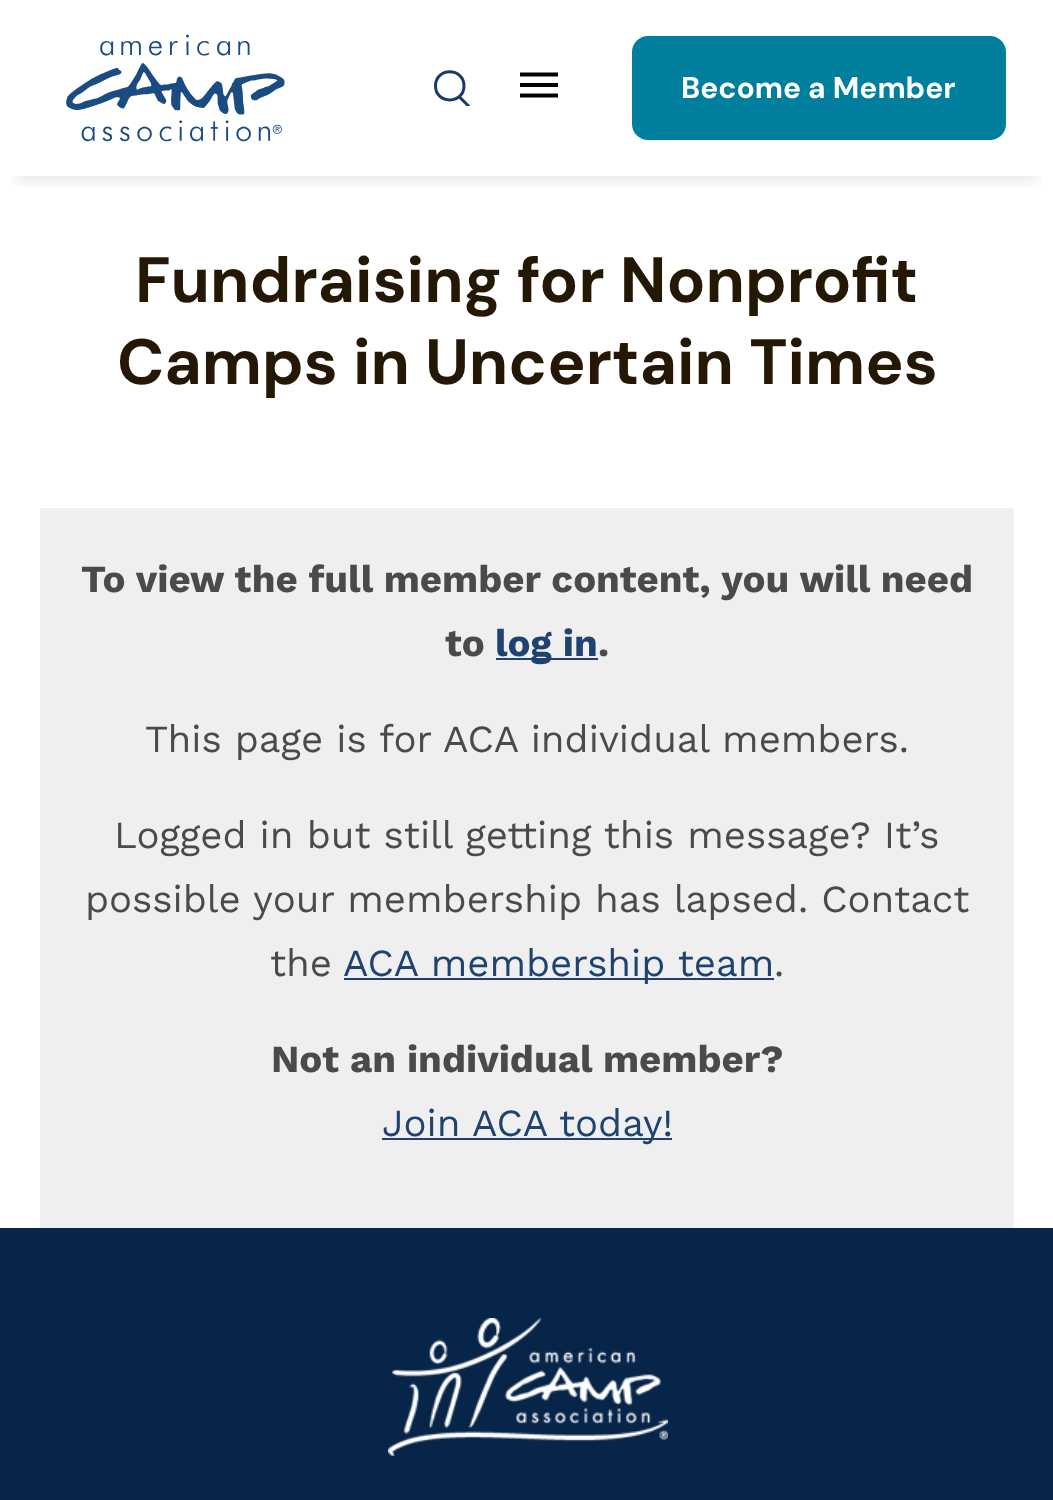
<svg xmlns="http://www.w3.org/2000/svg" width="1053" height="1500">
	<defs>
		<clipPath id="clip1"><rect x="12" y="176" width="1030" height="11" /></clipPath>
		<clipPath id="clip2"><rect x="434" y="70" width="36" height="36" /></clipPath>
	</defs>
	<rect width="100%" height="100%" fill="#FFFFFF" />
	<g clip-path="url(#clip1)">
		<rect x="16" y="36" width="1022" height="144" fill="#000000" fill-opacity="0.1" filter="blur(8px)" />
	</g>
	<image x="66" y="34" width="219" height="108" href="assets/img1.png" />
	<g clip-path="url(#clip2)">
		<path d="M435.5 86C435.5 67 464 67 464 86C464 104.5 435.5 104.5 435.5 86ZM459.5 97L468.5 106" fill="none" stroke="#1B396B" stroke-width="3" stroke-linecap="round" stroke-linejoin="round" />
	</g>
	<path d="M520 72.5H558V76.5H520ZM520 87V83H558V87ZM520 97.5V93.5H558V97.5Z" fill="#000000" />
	<rect x="633" y="37" width="372" height="102" rx="15" fill="#007E9E" stroke="#007E9E" stroke-width="2" />
	<text x="681" y="98" font-family="DM Sans" font-size="30" font-weight="700" fill="#FFFFFF">Become a Member</text>
	<g font-family="DM Sans" font-size="64" font-weight="700" fill="#241704">
		<text x="135" y="302">Fundraising for Nonprofit</text>
		<text x="117" y="384">Camps in Uncertain Times</text>
	</g>
	<rect x="40" y="508" width="974" height="720" fill="#EFEFEF" />
	<g font-family="Work Sans" font-size="38.4" font-weight="700" fill="#4A4A4A">
		<text x="81" y="592">To view the full member content, you will need</text>
		<text x="445" y="656">to</text>
	</g>
	<rect x="496" y="658" width="102" height="2" fill="#1F426F" />
	<text x="495" y="656" font-family="Work Sans" font-size="38.4" font-weight="700" fill="#1F426F">log in</text>
	<text x="598" y="656" font-family="Work Sans" font-size="38.4" font-weight="700" fill="#4A4A4A">.</text>
	<g font-family="Work Sans" font-size="38.4" fill="#4A4A4A">
		<text x="145" y="752">This page is for ACA individual members.</text>
		<text x="114" y="848">Logged in but still getting this message? It’s</text>
		<text x="85" y="912">possible your membership has lapsed. Contact</text>
		<text x="270" y="976">the</text>
	</g>
	<rect x="344" y="978" width="430" height="2" fill="#1F426F" />
	<text x="343" y="976" font-family="Work Sans" font-size="38.4" fill="#1F426F">ACA membership team</text>
	<text x="774" y="976" font-family="Work Sans" font-size="38.4" fill="#4A4A4A">.</text>
	<text x="271" y="1072" font-family="Work Sans" font-size="38.4" font-weight="700" fill="#4A4A4A">Not an individual member?</text>
	<rect x="382" y="1138" width="290" height="2" fill="#1F426F" />
	<text x="382" y="1136" font-family="Work Sans" font-size="38.4" fill="#1F426F">Join ACA today!</text>
	<rect x="0" y="1228" width="1053" height="272" fill="#072449" />
	<image x="388" y="1318" width="280" height="138" href="assets/img2.png" />
</svg>
